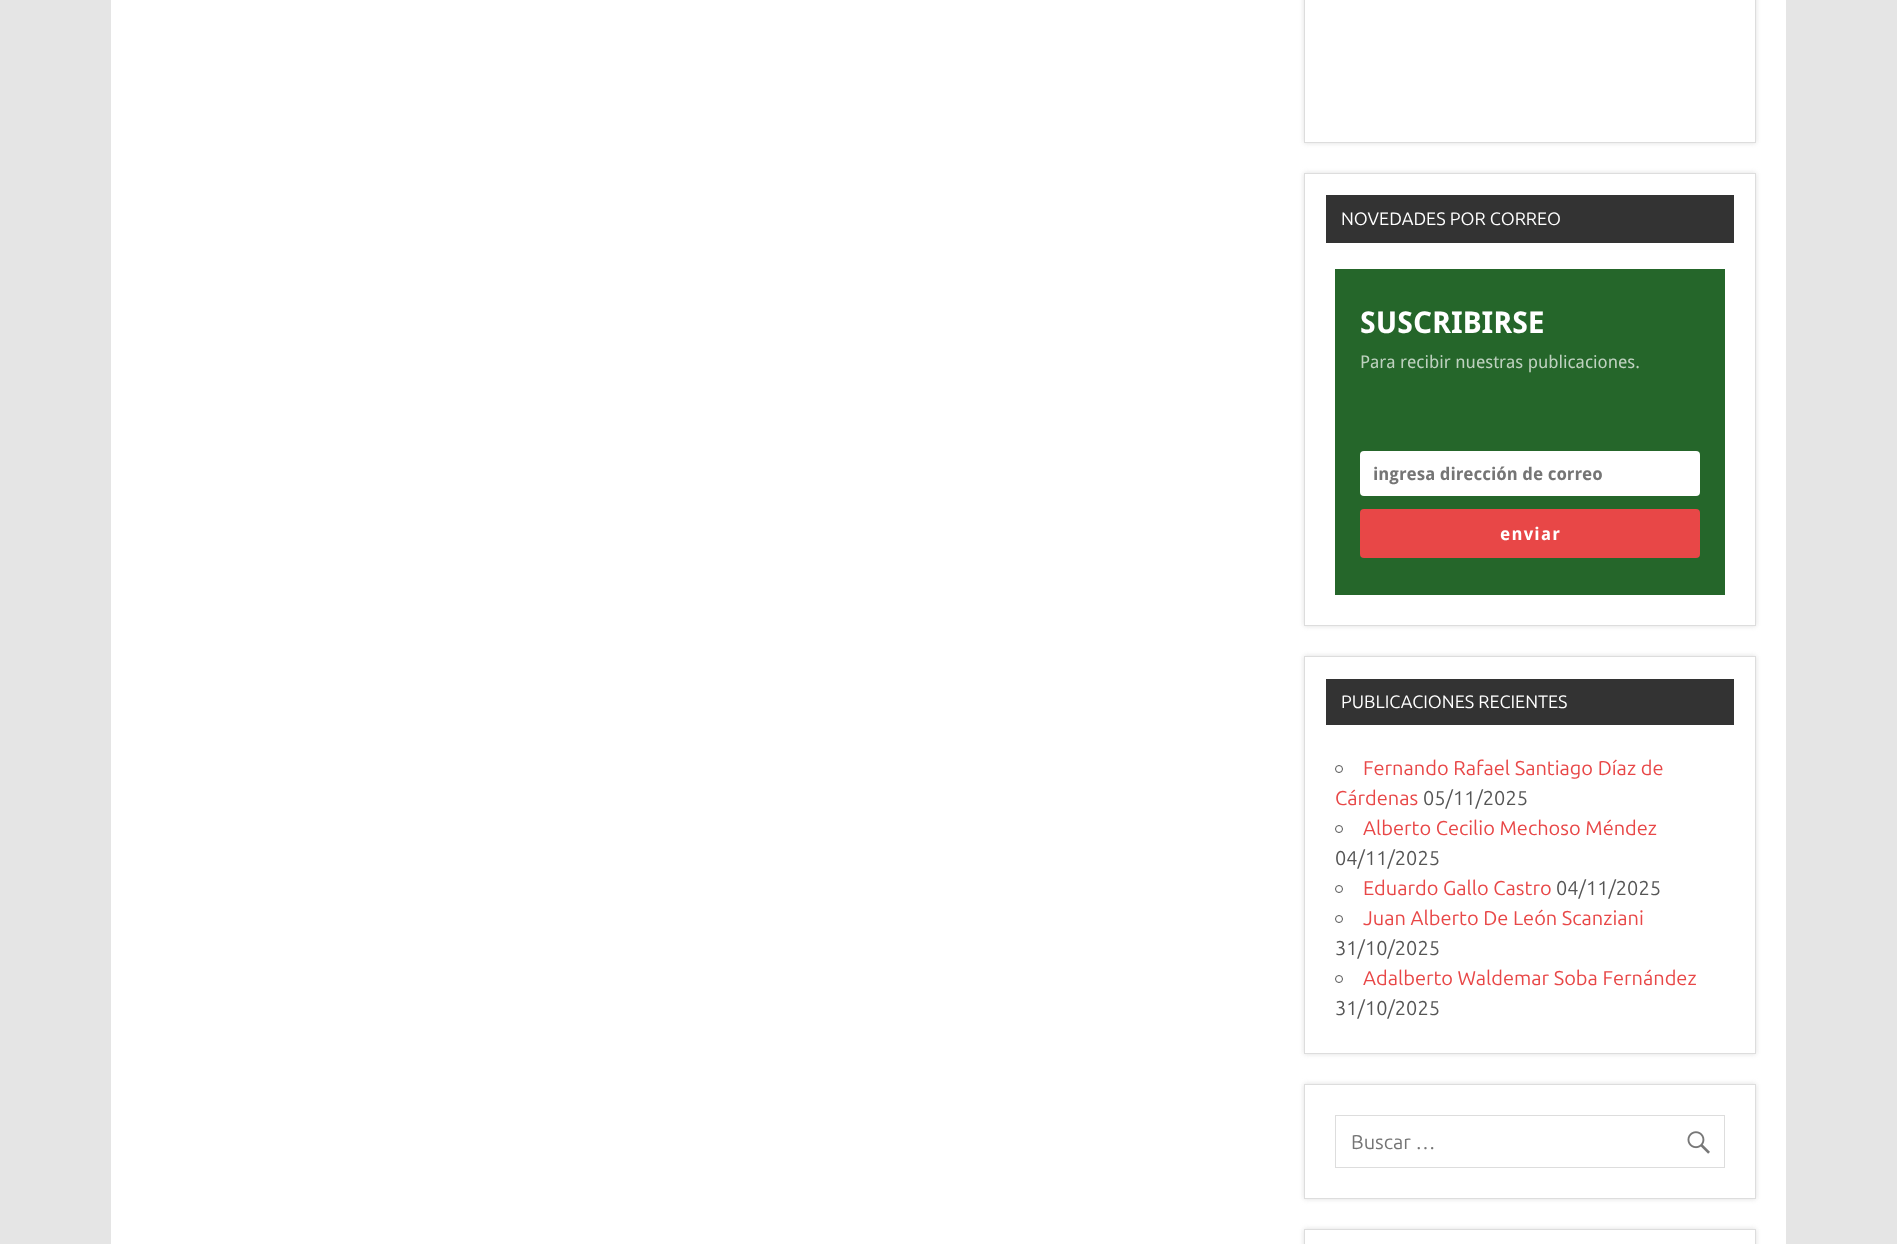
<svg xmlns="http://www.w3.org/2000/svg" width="1897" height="1244">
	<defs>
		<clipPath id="clip1"><path d="M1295 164H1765V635H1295ZM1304 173H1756V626H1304Z" clip-rule="evenodd" /></clipPath>
		<clipPath id="clip2"><path d="M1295 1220H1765V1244H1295ZM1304 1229H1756V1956H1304Z" clip-rule="evenodd" /></clipPath>
	</defs>
	<rect width="100%" height="100%" fill="#E5E5E5" />
	<rect x="111" y="0" width="1675" height="1244" fill="#FFFFFF" />
	<rect x="1304" y="-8" width="452" height="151" fill="#DDDDDD" filter="blur(2.5px)" />
	<rect x="1304.5" y="-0.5" width="451" height="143" fill="#FFFFFF" stroke="#DDDDDD" />
	<g clip-path="url(#clip1)">
		<rect x="1304" y="173" width="452" height="453" fill="#DDDDDD" filter="blur(2.5px)" />
	</g>
	<rect x="1304.5" y="173.5" width="451" height="452" fill="none" stroke="#DDDDDD" />
	<rect x="1326" y="195" width="408" height="48" fill="#333333" />
	<text x="1341" y="225" font-family="Ubuntu" font-size="18" fill="#FFFFFF">NOVEDADES POR CORREO</text>
	<rect x="1335" y="269" width="390" height="326" fill="#25662A" />
	<text x="1360" y="333" font-family="Droid Sans" font-size="30" font-weight="700" fill="#FFFFFF">SUSCRIBIRSE</text>
	<text x="1360" y="368" font-family="Droid Sans" font-size="17.5" fill="#BED1BF">Para recibir nuestras publicaciones.</text>
	<rect x="1360" y="451" width="340" height="45" rx="4" fill="#FFFFFF" />
	<text x="1373" y="480" font-family="Droid Sans" font-size="17.5" font-weight="700" fill="#757575">ingresa dirección de correo</text>
	<rect x="1360" y="509" width="340" height="49" rx="4" fill="#E84747" />
	<text x="1500" y="540" font-family="Droid Sans" font-size="17.5" font-weight="700" letter-spacing="1.25" fill="#FFFFFF">enviar</text>
	<rect x="1304" y="656" width="452" height="398" fill="#DDDDDD" filter="blur(2.5px)" />
	<rect x="1304.5" y="656.5" width="451" height="397" fill="#FFFFFF" stroke="#DDDDDD" />
	<rect x="1326" y="679" width="408" height="46" fill="#333333" />
	<text x="1341" y="708" font-family="Ubuntu" font-size="18" fill="#FFFFFF">PUBLICACIONES RECIENTES</text>
	<circle cx="1339" cy="769" r="3.5" fill="none" stroke="#555555" />
	<g font-family="Ubuntu" font-size="20" fill="#E84747">
		<text x="1363" y="775">Fernando Rafael Santiago Díaz de</text>
		<text x="1335" y="805">Cárdenas</text>
	</g>
	<text x="1423" y="805" font-family="Ubuntu" font-size="20" fill="#555555">05/11/2025</text>
	<circle cx="1339" cy="829" r="3.5" fill="none" stroke="#555555" />
	<text x="1363" y="835" font-family="Ubuntu" font-size="20" fill="#E84747">Alberto Cecilio Mechoso Méndez</text>
	<text x="1335" y="865" font-family="Ubuntu" font-size="20" fill="#555555">04/11/2025</text>
	<circle cx="1339" cy="889" r="3.5" fill="none" stroke="#555555" />
	<text x="1363" y="895" font-family="Ubuntu" font-size="20" fill="#E84747">Eduardo Gallo Castro</text>
	<text x="1556" y="895" font-family="Ubuntu" font-size="20" fill="#555555">04/11/2025</text>
	<circle cx="1339" cy="919" r="3.5" fill="none" stroke="#555555" />
	<text x="1363" y="925" font-family="Ubuntu" font-size="20" fill="#E84747">Juan Alberto De León Scanziani</text>
	<text x="1335" y="955" font-family="Ubuntu" font-size="20" fill="#555555">31/10/2025</text>
	<circle cx="1339" cy="979" r="3.5" fill="none" stroke="#555555" />
	<text x="1363" y="985" font-family="Ubuntu" font-size="20" fill="#E84747">Adalberto Waldemar Soba Fernández</text>
	<text x="1335" y="1015" font-family="Ubuntu" font-size="20" fill="#555555">31/10/2025</text>
	<rect x="1304" y="1084" width="452" height="115" fill="#DDDDDD" filter="blur(2.5px)" />
	<rect x="1304.5" y="1084.5" width="451" height="114" fill="#FFFFFF" stroke="#DDDDDD" />
	<rect x="1335.5" y="1115.5" width="389" height="52" fill="none" stroke="#DDDDDD" />
	<text x="1351" y="1149" font-family="Ubuntu" font-size="20" fill="#757575">Buscar …</text>
	<image x="1687" y="1131" width="23" height="23" href="assets/img1.png" />
	<g clip-path="url(#clip2)">
		<rect x="1304" y="1229" width="452" height="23" fill="#DDDDDD" filter="blur(2.5px)" />
	</g>
	<rect x="1304.5" y="1229.5" width="451" height="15" fill="none" stroke="#DDDDDD" />
</svg>
